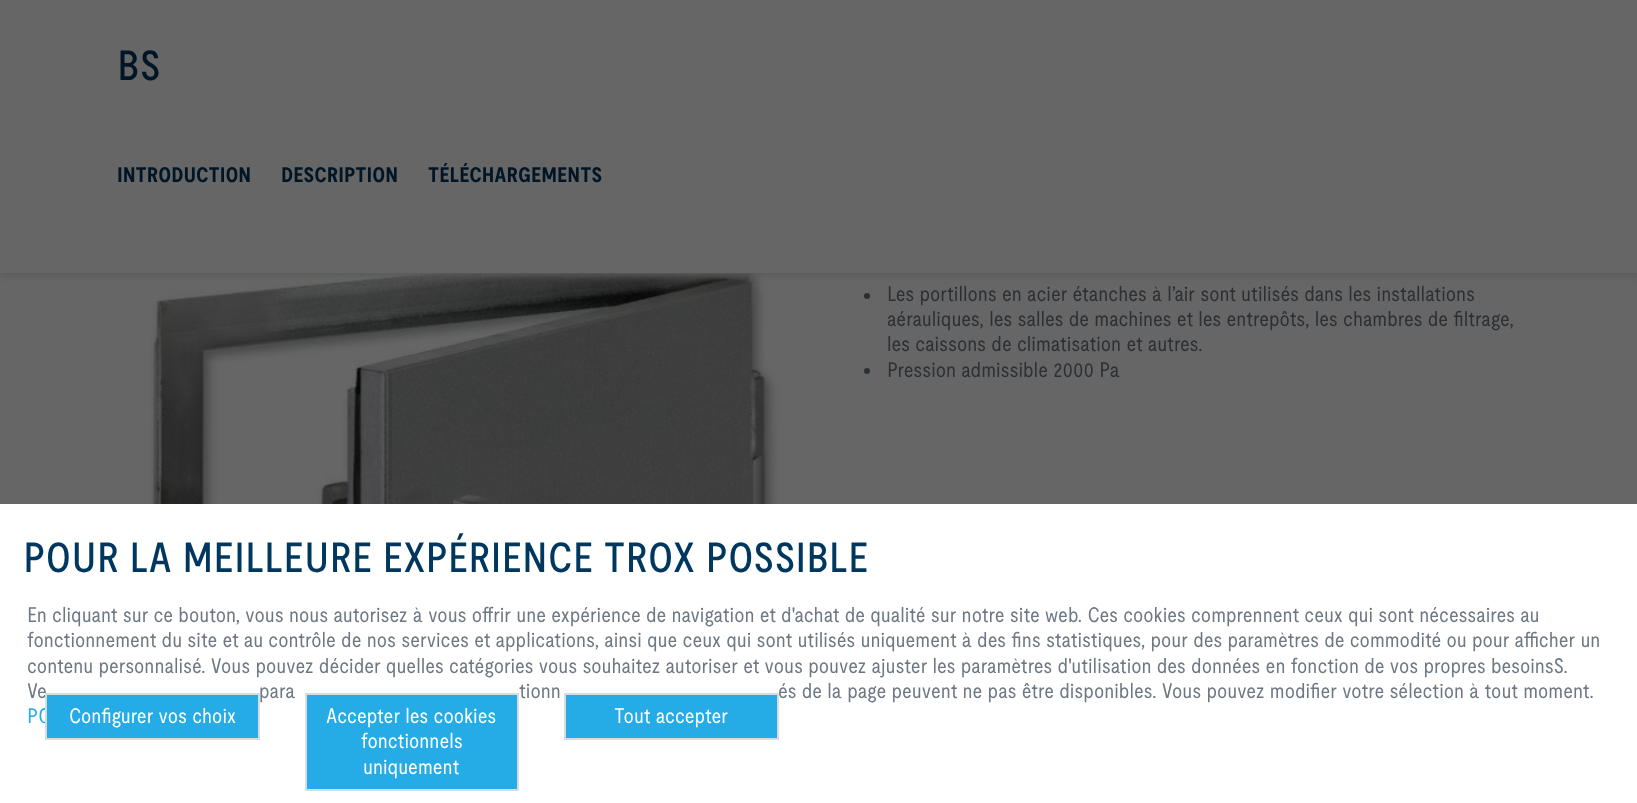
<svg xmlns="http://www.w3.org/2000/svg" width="1637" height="803">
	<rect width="100%" height="100%" fill="#666666" />
	<image x="149" y="273" width="631" height="231" href="assets/img1.png" />
	<rect x="0" y="-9" width="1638" height="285" fill="#5A5A5A" filter="blur(3px)" />
	<rect x="-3" y="-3" width="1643" height="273" fill="none" stroke="#666666" stroke-width="6" />
	<rect x="0" y="0" width="1637" height="267" fill="#666666" />
	<text x="117" y="80" font-family="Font" font-size="42" font-weight="500" fill="#001626">BS</text>
	<g font-family="Font" font-size="21" font-weight="700" fill="#001626">
		<text x="117" y="182">INTRODUCTION</text>
		<text x="281" y="182">DESCRIPTION</text>
		<text x="428" y="182">TÉLÉCHARGEMENTS</text>
	</g>
	<circle cx="867" cy="296" r="3" fill="#2C3034" />
	<g font-family="Font" font-size="21" fill="#2C3034">
		<text x="887" y="301">Les portillons en acier étanches à l’air sont utilisés dans les installations</text>
		<text x="887" y="326">aérauliques, les salles de machines et les entrepôts, les chambres de filtrage,</text>
		<text x="887" y="351">les caissons de climatisation et autres.</text>
	</g>
	<circle cx="867" cy="371" r="3" fill="#2C3034" />
	<text x="887" y="377" font-family="Font" font-size="21" fill="#2C3034">Pression admissible 2000 Pa</text>
	<rect x="0" y="504" width="1637" height="299" fill="#FFFFFF" />
	<text x="23" y="572" font-family="Font" font-size="42" font-weight="500" fill="#00375F">POUR LA MEILLEURE EXPÉRIENCE TROX POSSIBLE</text>
	<g font-family="Font" font-size="21" fill="#6E7883">
		<text x="27" y="622">En cliquant sur ce bouton, vous nous autorisez à vous offrir une expérience de navigation et d'achat de qualité sur notre site web. Ces cookies comprennent ceux qui sont nécessaires au</text>
		<text x="27" y="647">fonctionnement du site et au contrôle de nos services et applications, ainsi que ceux qui sont utilisés uniquement à des fins statistiques, pour des paramètres de commodité ou pour afficher un</text>
		<text x="27" y="673">contenu personnalisé. Vous pouvez décider quelles catégories vous souhaitez autoriser et vous pouvez ajuster les paramètres d'utilisation des données en fonction de vos propres besoinsS.</text>
		<text x="27" y="698">Ve</text>
		<text x="259" y="698">para</text>
		<text x="519" y="698">tionn</text>
		<text x="778" y="698">és de la page peuvent ne pas être disponibles. Vous pouvez modifier votre sélection à tout moment.</text>
	</g>
	<text x="27" y="723" font-family="Font" font-size="21" fill="#25ACE7">PO</text>
	<rect x="46" y="694" width="213" height="45" fill="#25ACE7" stroke="#D9DCDD" stroke-width="2" />
	<text x="69" y="723" font-family="Font" font-size="21" fill="#FFFFFF">Configurer vos choix</text>
	<rect x="306" y="694" width="212" height="96" fill="#25ACE7" stroke="#D9DCDD" stroke-width="2" />
	<g font-family="Font" font-size="21" fill="#FFFFFF">
		<text x="326" y="723">Accepter les cookies</text>
		<text x="361" y="748">fonctionnels</text>
		<text x="363" y="774">uniquement</text>
	</g>
	<rect x="565" y="694" width="213" height="45" fill="#25ACE7" stroke="#D9DCDD" stroke-width="2" />
	<text x="614" y="723" font-family="Font" font-size="21" fill="#FFFFFF">Tout accepter</text>
</svg>
